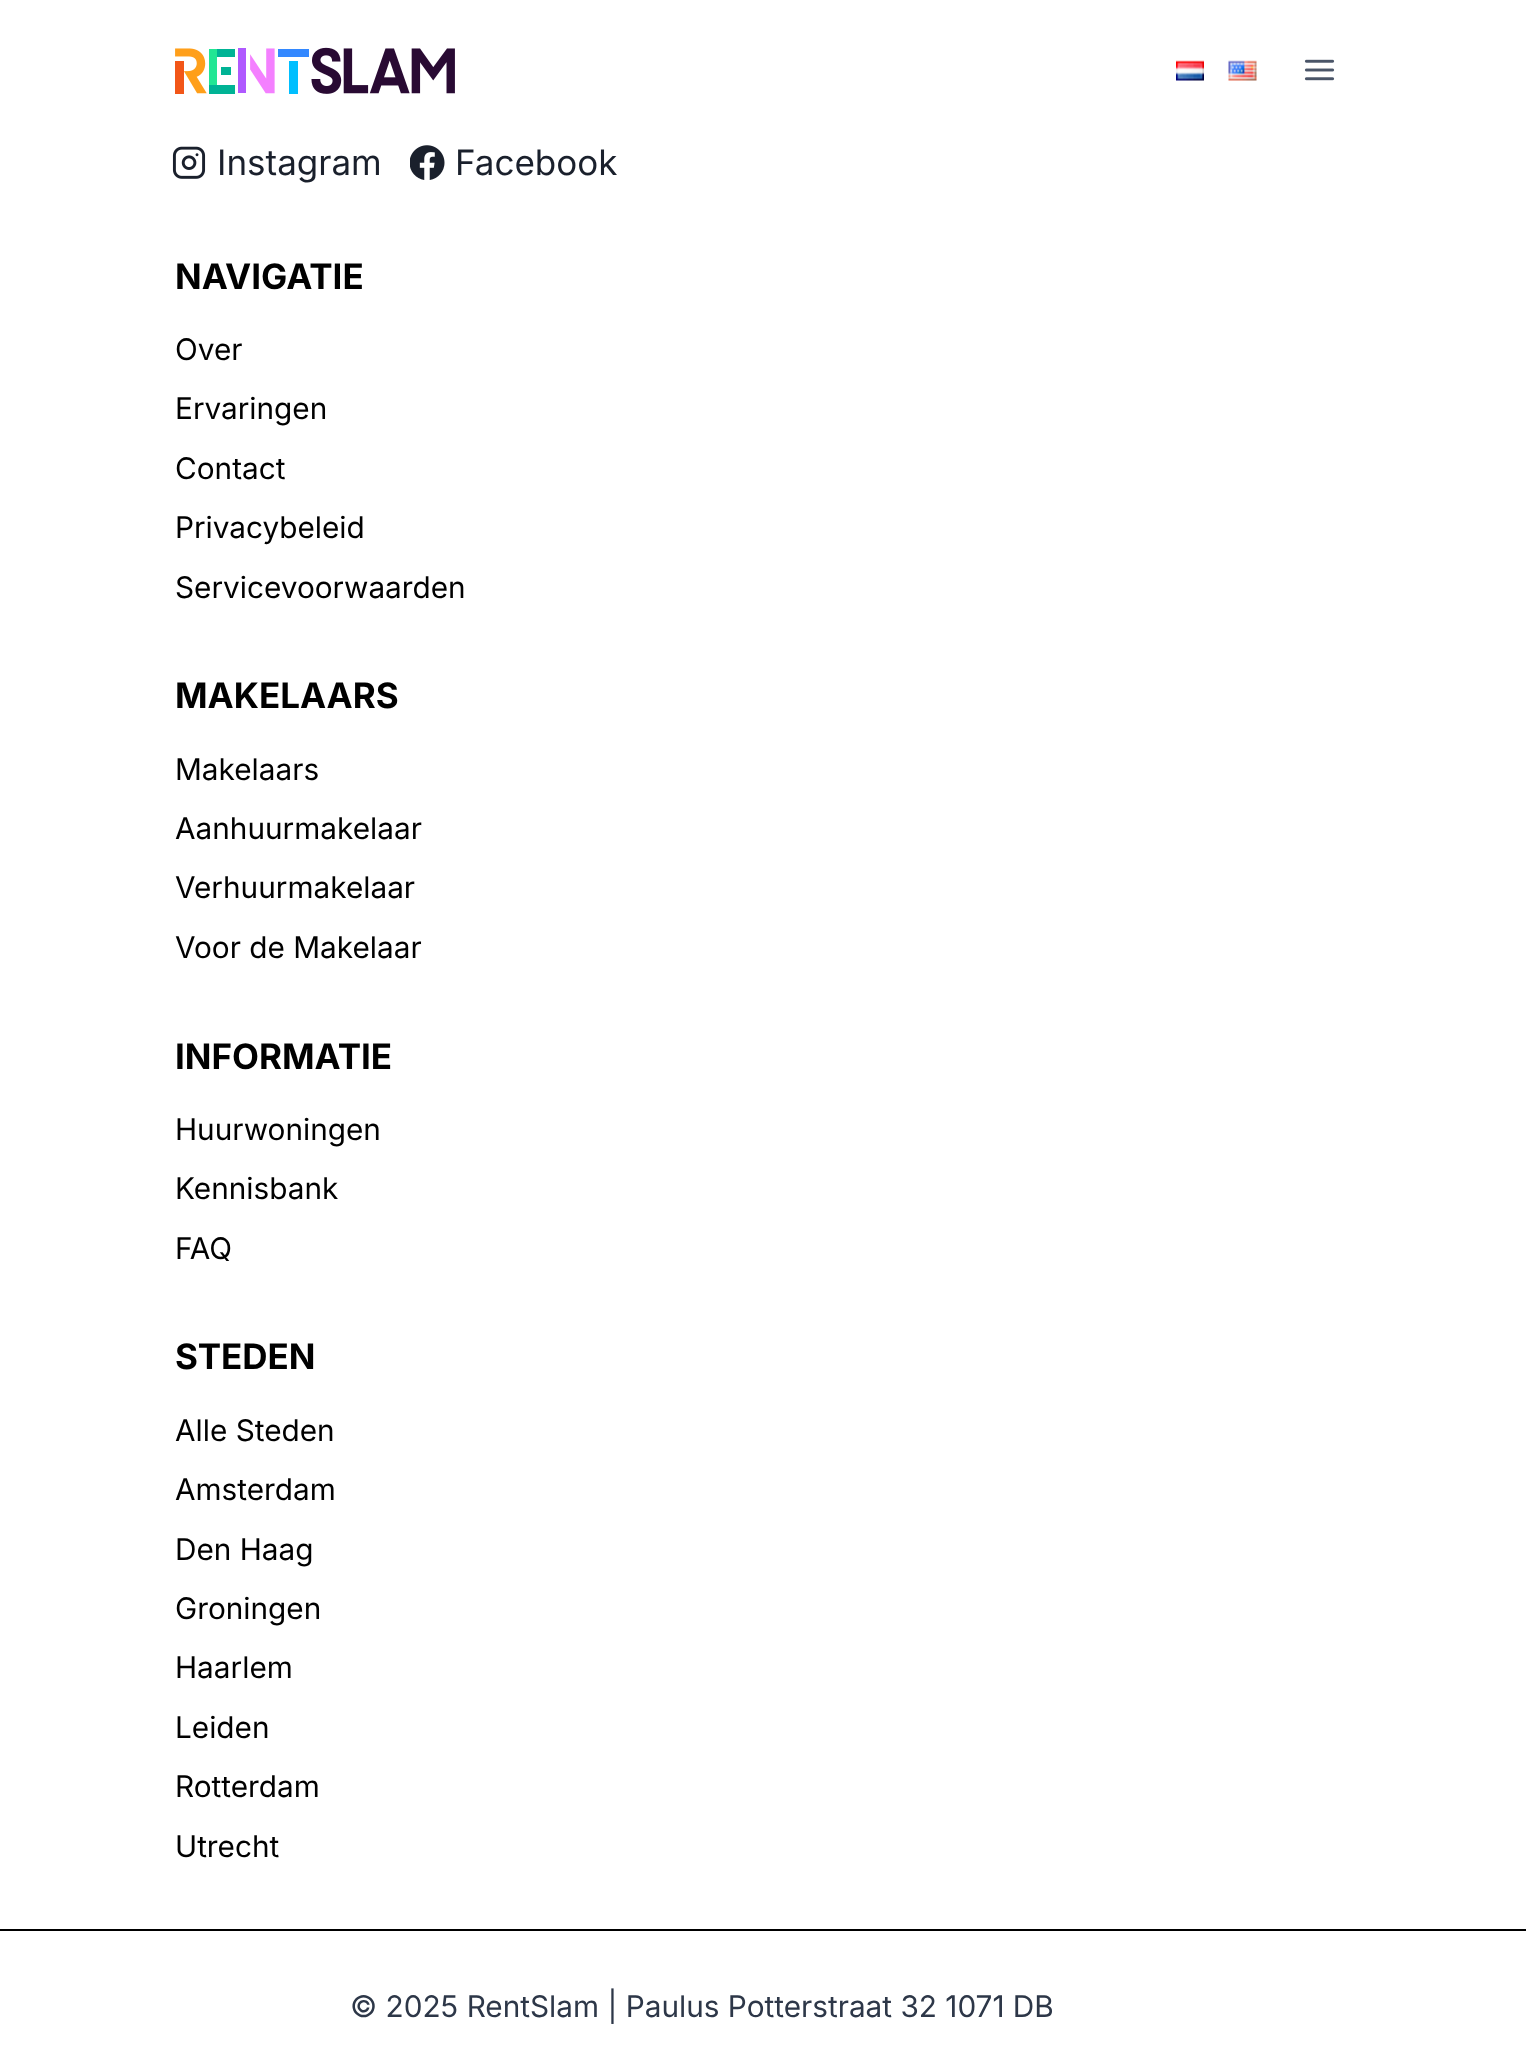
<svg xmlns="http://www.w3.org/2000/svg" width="1526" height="2046">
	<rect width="100%" height="100%" fill="#FFFFFF" />
	<image x="175" y="47" width="280" height="47" href="assets/img1.png" />
	<image x="1176" y="60" width="28" height="21" href="assets/img2.png" />
	<image x="1228" y="60" width="29" height="21" href="assets/img3.png" />
	<image x="1304" y="59" width="31" height="22" href="assets/img4.png" />
	<rect x="0" y="1929" width="1526" height="2" fill="#000000" />
	<image x="172" y="146" width="34" height="33" href="assets/img5.png" />
	<text x="217" y="175" font-family="Inter" font-size="35" fill="#1A202C">Instagram</text>
	<image x="410" y="145" width="35" height="35" href="assets/img6.png" />
	<text x="455" y="175" font-family="Inter" font-size="35" fill="#1A202C">Facebook</text>
	<text x="175" y="289" font-family="Inter" font-size="35" font-weight="700" fill="#000000">NAVIGATIE</text>
	<g font-family="Inter" font-size="29.75" fill="#000000">
		<text x="175" y="360">Over</text>
		<text x="175" y="419">Ervaringen</text>
		<text x="175" y="479">Contact</text>
		<text x="175" y="538">Privacybeleid</text>
		<text x="175" y="598">Servicevoorwaarden</text>
	</g>
	<text x="175" y="708" font-family="Inter" font-size="35" font-weight="700" fill="#000000">MAKELAARS</text>
	<g font-family="Inter" font-size="29.75" fill="#000000">
		<text x="175" y="780">Makelaars</text>
		<text x="175" y="839">Aanhuurmakelaar</text>
		<text x="175" y="898">Verhuurmakelaar</text>
		<text x="175" y="958">Voor de Makelaar</text>
	</g>
	<text x="175" y="1069" font-family="Inter" font-size="35" font-weight="700" fill="#000000">INFORMATIE</text>
	<g font-family="Inter" font-size="29.75" fill="#000000">
		<text x="175" y="1140">Huurwoningen</text>
		<text x="175" y="1199">Kennisbank</text>
		<text x="175" y="1259">FAQ</text>
	</g>
	<text x="175" y="1369" font-family="Inter" font-size="35" font-weight="700" fill="#000000">STEDEN</text>
	<g font-family="Inter" font-size="29.75" fill="#000000">
		<text x="175" y="1441">Alle Steden</text>
		<text x="175" y="1500">Amsterdam</text>
		<text x="175" y="1560">Den Haag</text>
		<text x="175" y="1619">Groningen</text>
		<text x="175" y="1678">Haarlem</text>
		<text x="175" y="1738">Leiden</text>
		<text x="175" y="1797">Rotterdam</text>
		<text x="175" y="1857">Utrecht</text>
	</g>
	<text x="350" y="2017" font-family="Inter" font-size="29.75" fill="#2D3748">© 2025 RentSlam | Paulus Potterstraat 32 1071 DB</text>
</svg>
